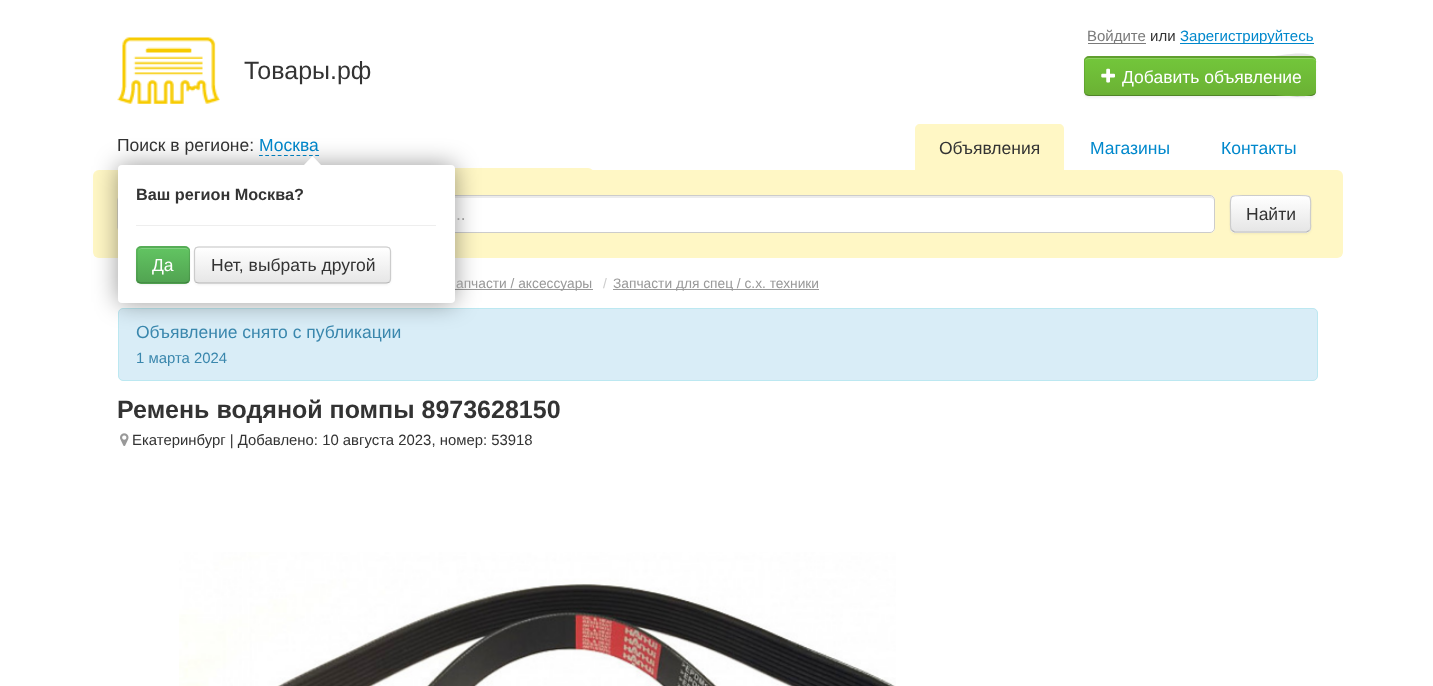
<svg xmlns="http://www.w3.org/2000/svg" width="1433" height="686">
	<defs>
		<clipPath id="clip1"><rect x="1084" y="56" width="232" height="40" rx="5" /></clipPath>
		<linearGradient id="g1" gradientUnits="userSpaceOnUse" x1="1201" y1="57" x2="1201" y2="95"><stop offset="0" stop-color="#73C73B" /><stop offset="1" stop-color="#6BB134" /></linearGradient>
		<clipPath id="clip2"><rect x="136" y="246" width="54" height="38" rx="5" /></clipPath>
		<linearGradient id="g2" gradientUnits="userSpaceOnUse" x1="163" y1="248" x2="163" y2="283"><stop offset="0" stop-color="#62C462" /><stop offset="1" stop-color="#51A351" /></linearGradient>
		<clipPath id="clip3"><rect x="194" y="246" width="197" height="38" rx="5" /></clipPath>
		<linearGradient id="g3" gradientUnits="userSpaceOnUse" x1="293" y1="248" x2="293" y2="283"><stop offset="0" stop-color="#FFFFFF" /><stop offset="1" stop-color="#E6E6E6" /></linearGradient>
		<clipPath id="clip4"><rect x="1230" y="195" width="81" height="38" rx="5" /></clipPath>
		<linearGradient id="g4" gradientUnits="userSpaceOnUse" x1="1271" y1="196" x2="1271" y2="231"><stop offset="0" stop-color="#FFFFFF" /><stop offset="1" stop-color="#E6E6E6" /></linearGradient>
	</defs>
	<rect width="100%" height="100%" fill="#FFFFFF" />
	<image x="117" y="37" width="103" height="67" href="assets/img1.png" />
	<text x="244" y="79" font-family="Liberation Sans" font-size="25" fill="#333333">Товары.рф</text>
	<rect x="1088" y="43" width="58" height="1" fill="#7A7A7A" />
	<text x="1087" y="41" font-family="Liberation Sans" font-size="15" fill="#7A7A7A">Войдите</text>
	<text x="1150" y="41" font-family="Liberation Sans" font-size="15" fill="#333333">или</text>
	<rect x="1180" y="43" width="134" height="1" fill="#0088CC" />
	<text x="1180" y="41" font-family="Liberation Sans" font-size="15" fill="#0088CC">Зарегистрируйтесь</text>
	<rect x="1084" y="58" width="232" height="40" rx="5" fill="#000000" fill-opacity="0.05" filter="blur(1px)" />
	<rect x="1084" y="56" width="232" height="40" rx="5" fill="#6BB134" />
	<g clip-path="url(#clip1)">
		<rect x="1084" y="58" width="232" height="37" fill="url(#g1)" />
	</g>
	<path d="M1089 59H1311C1319 59 1316 66 1316 72V92V71C1316 67 1319 58 1311 58H1089C1086 58 1085 60 1085 62C1085 60 1087 59 1089 59Z" fill="#8FD162" />
	<path d="M1089 58L1086 59L1085 58L1087 56H1275C1277 56 1316 48 1316 61C1316 59 1314 58 1311 58Z" fill="#000000" fill-opacity="0.1" />
	<path d="M1086 94L1085 95C1086 96 1088 96 1089 96H1311C1314 96 1316 94 1316 91C1316 100 1276 95 1274 95H1089Z" fill="#000000" fill-opacity="0.25" />
	<path d="M1085.5 94.5C1084.5 94 1084 92.5 1084 91V61C1084 59.5 1084.5 58.5 1085 57.5L1086 59C1085.5 59 1085 60 1085 61V91C1085 92 1085.5 93 1086 94Z" fill="#000000" fill-opacity="0.1" />
	<image x="1101" y="68" width="14" height="15" href="assets/img2.png" />
	<text x="1122" y="83" font-family="Liberation Sans" font-size="17.5" fill="#FFFFFF">Добавить объявление</text>
	<text x="117" y="151" font-family="Liberation Sans" font-size="17.5" fill="#333333">Поиск в регионе:</text>
	<text x="259" y="151" font-family="Liberation Sans" font-size="17.5" fill="#0088CC">Москва</text>
	<path d="M259 155.5H319" fill="none" stroke="#0088CC" stroke-width="1.2" stroke-dasharray="3.75 2.5" />
	<rect x="118" y="168" width="476" height="50" rx="6" fill="#FFF7C5" />
	<path d="M920 124H1059C1062 124 1064 126 1064 129V171H915V129C915 126 917 124 920 124Z" fill="#FFF7C5" />
	<rect x="93" y="170" width="1250" height="88" rx="6" fill="#FFF7C5" />
	<path d="M119.5 230.5C118.5 230 118 228.5 118 227.5V200C118 199 118.5 197.5 119.5 197C120 196 121.5 195.5 122.5 195.5H274C275 195.5 276 196 277 197C277.5 197.5 278 199 278 200V227.5C278 228.5 277.5 230 277 230.5" fill="none" stroke="#CCCCCC" stroke-width="1.2" />
	<rect x="291" y="195" width="924" height="38" rx="5" fill="#FFFFFF" />
	<path d="M296 198H1210C1212 198 1214 199 1214 201V200C1214 198 1212 196 1210 196H297C295 196 294 197 293 199Z" fill="#ECECEC" />
	<rect x="291.5" y="195.5" width="923" height="37" rx="4.5" fill="none" stroke="#CCCCCC" />
	<rect x="448" y="289" width="145" height="1" fill="#999999" />
	<rect x="118.5" y="308.5" width="1199" height="72" rx="4.5" fill="#D9EDF7" stroke="#BCE8F1" />
	<rect x="118" y="165" width="337" height="138" rx="4" fill="#000000" fill-opacity="0.4" filter="blur(12.5px)" />
	<rect x="118" y="165" width="337" height="138" rx="4" fill="#FFFFFF" />
	<path d="M321 165H304L312.5 156Z" fill="#FFFFFF" />
	<text x="136" y="200" font-family="Liberation Sans" font-size="16.25" font-weight="700" fill="#333333">Ваш регион Москва?</text>
	<rect x="136" y="225" width="300" height="1" fill="#EEEEEE" />
	<rect x="136" y="248" width="54" height="37" rx="5" fill="#000000" fill-opacity="0.05" filter="blur(1px)" />
	<rect x="136" y="246" width="54" height="38" rx="5" fill="#5BB75B" />
	<g clip-path="url(#clip2)">
		<rect x="136" y="248" width="54" height="35" fill="url(#g2)" />
	</g>
	<path d="M141 249H185C187 249 189 250 189 252C189 250 187 248 185 248H142C141 248 139 249 139 250Z" fill="#81D081" />
	<path d="M188 282C187.5 282.5 186 283 185 283H141C140 283 139 282.5 138 282" fill="none" stroke="#000000" stroke-opacity="0.25" stroke-width="1.2" />
	<path d="M138 282C137.5 281 137 280 137 279V251C137 250 137.5 249 138 248C139 247.5 140 247 141 247H185C186 247 187.5 247.5 188 248C189 249 189.5 250 189.5 251V279C189.5 280 189 281 188 282" fill="none" stroke="#000000" stroke-opacity="0.1" stroke-width="1.2" />
	<text x="152" y="271" font-family="Liberation Sans" font-size="17.5" fill="#FFFFFF">Да</text>
	<rect x="194" y="248" width="197" height="37" rx="5" fill="#000000" fill-opacity="0.05" filter="blur(1px)" />
	<rect x="194" y="246" width="197" height="38" rx="5" fill="#F5F5F5" />
	<g clip-path="url(#clip3)">
		<rect x="194" y="248" width="197" height="35" fill="url(#g3)" />
	</g>
	<path d="M389.5 282C388.5 282.5 387.5 283 386 283H199C197.5 283 196.5 282.5 195.5 282" fill="none" stroke="#B3B3B3" stroke-width="1.2" />
	<path d="M195.5 282C195 281 194.5 280 194.5 279V251C194.5 250 195 249 195.5 248C196.5 247.5 197.5 247 199 247H386C387.5 247 388.5 247.5 389.5 248C390 249 390.5 250 390.5 251V279C390.5 280 390 281 389.5 282" fill="none" stroke="#CCCCCC" stroke-width="1.2" />
	<g font-family="Liberation Sans" font-size="17.5" fill="#333333">
		<text x="211" y="271">Нет, выбрать другой</text>
		<text x="939" y="154">Объявления</text>
	</g>
	<g font-family="Liberation Sans" font-size="17.5" fill="#0088CC">
		<text x="1090" y="154">Магазины</text>
		<text x="1221" y="154">Контакты</text>
	</g>
	<text x="456" y="220" font-family="Liberation Sans" font-size="17.5" fill="#999999">..</text>
	<rect x="1230" y="196" width="81" height="38" rx="5" fill="#000000" fill-opacity="0.05" filter="blur(1px)" />
	<rect x="1230" y="195" width="81" height="38" rx="5" fill="#F5F5F5" />
	<g clip-path="url(#clip4)">
		<rect x="1230" y="196" width="81" height="35" fill="url(#g4)" />
	</g>
	<path d="M1309.5 230.5L1306.5 232H1234.5L1232 230.5" fill="none" stroke="#B3B3B3" stroke-width="1.2" />
	<path d="M1232 230.5C1230 228.5 1230.5 225.5 1230.5 223V214C1230.5 194 1227.5 195.5 1247 195.5H1294.5C1314 195.5 1310.5 194 1310.5 214V223C1310.5 225.5 1311.5 228.5 1309.5 230.5" fill="none" stroke="#CCCCCC" stroke-width="1.2" />
	<text x="1246" y="220" font-family="Liberation Sans" font-size="17.5" fill="#333333">Найти</text>
	<text x="456" y="288" font-family="Liberation Sans" font-size="13.75" fill="#999999">апчасти / аксессуары</text>
	<text x="603" y="288" font-family="Liberation Sans" font-size="13.75" fill="#CCCCCC">/</text>
	<rect x="613" y="289" width="206" height="1" fill="#999999" />
	<text x="613" y="288" font-family="Liberation Sans" font-size="13.75" fill="#999999">Запчасти для спец / с.х. техники</text>
	<text x="136" y="338" font-family="Liberation Sans" font-size="17.5" fill="#3A87AD">Объявление снято с публикации</text>
	<text x="136" y="363" font-family="Liberation Sans" font-size="14.9" fill="#3A87AD">1 марта 2024</text>
	<text x="117" y="418" font-family="Liberation Sans" font-size="25" font-weight="700" fill="#333333">Ремень водяной помпы 8973628150</text>
	<image x="120" y="433" width="9" height="13" href="assets/img3.png" />
	<text x="132" y="445" font-family="Liberation Sans" font-size="14.9" fill="#333333">Екатеринбург | Добавлено: 10 августа 2023, номер: 53918</text>
	<image x="179" y="552" width="717" height="134" href="assets/img4.png" />
</svg>
